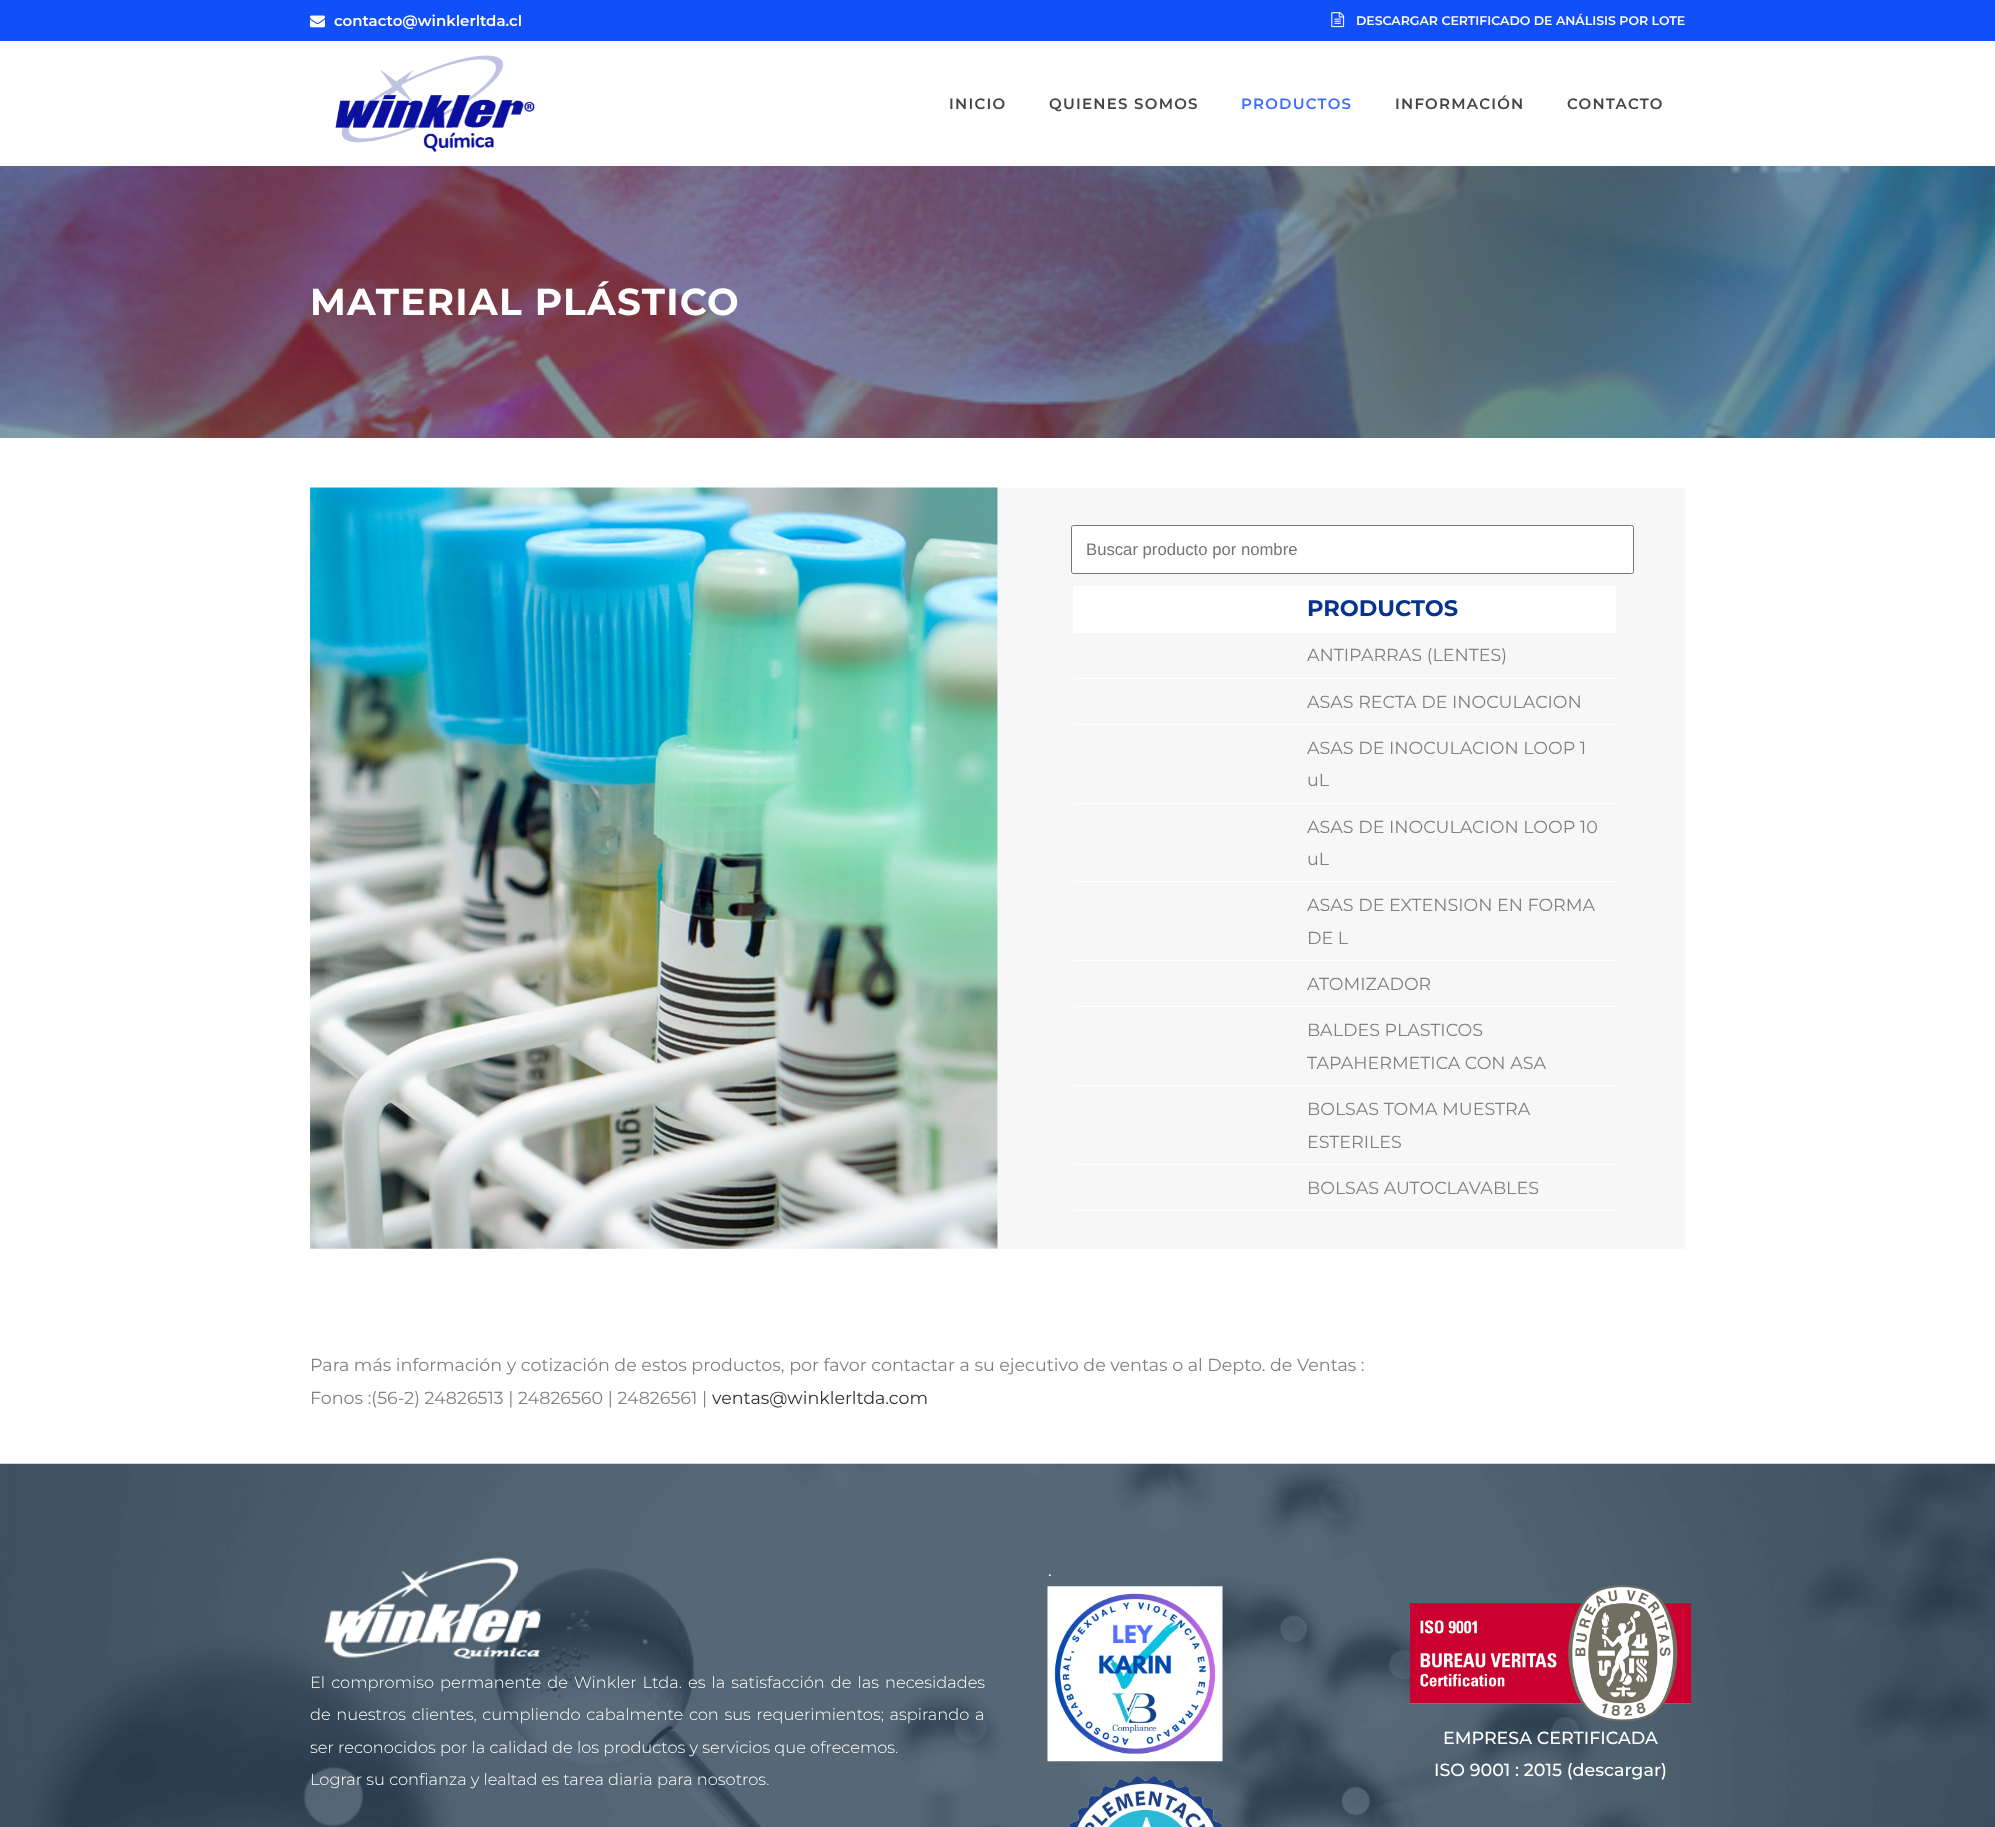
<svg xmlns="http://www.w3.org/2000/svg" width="1995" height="1827">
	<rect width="100%" height="100%" fill="#FFFFFF" />
	<rect x="0" y="0" width="1995" height="41" fill="#114FFA" />
	<image x="310" y="15" width="15" height="13" href="assets/img1.png" />
	<text x="334" y="26" font-family="Montserrat" font-size="15" font-weight="600" fill="#FFFFFF">contacto@winklerltda.cl</text>
	<image x="1331" y="12" width="14" height="16" href="assets/img2.png" />
	<text x="1356" y="25" font-family="Montserrat" font-size="12.5" font-weight="600" fill="#FFFFFF">DESCARGAR CERTIFICADO DE ANÁLISIS POR LOTE</text>
	<image x="335" y="55" width="200" height="97" href="assets/img3.png" />
	<g font-family="Montserrat" font-size="15" font-weight="600" letter-spacing="1.25" fill="#444444">
		<text x="949" y="109">INICIO</text>
		<text x="1049" y="109">QUIENES SOMOS</text>
	</g>
	<text x="1241" y="109" font-family="Montserrat" font-size="15" font-weight="600" letter-spacing="1.25" fill="#3F6EFA">PRODUCTOS</text>
	<g font-family="Montserrat" font-size="15" font-weight="600" letter-spacing="1.25" fill="#444444">
		<text x="1395" y="109">INFORMACIÓN</text>
		<text x="1567" y="109">CONTACTO</text>
	</g>
	<image x="0" y="166" width="1995" height="272" href="assets/img4.png" />
	<text x="310" y="315" font-family="Montserrat" font-size="37.5" font-weight="700" letter-spacing="1.25" fill="#FFFFFF">MATERIAL PLÁSTICO</text>
	<image x="310" y="487" width="688" height="762" href="assets/img5.png" />
	<rect x="998" y="488" width="687" height="761" fill="#F7F7F7" />
	<rect x="1071.5" y="525.5" width="562" height="48" rx="2" fill="#FFFFFF" stroke="#767676" />
	<text x="1086" y="555" font-family="Liberation Sans" font-size="16.7" fill="#757575">Buscar producto por nombre</text>
	<rect x="1073" y="586" width="543" height="47" fill="#FFFFFF" />
	<rect x="1616" y="631" width="2" height="1" fill="#FFFFFF" />
	<text x="1307" y="616" font-family="Montserrat" font-size="22.5" font-weight="700" fill="#06348C">PRODUCTOS</text>
	<rect x="1073" y="678" width="545" height="1" fill="#FFFFFF" />
	<text x="1307" y="661" font-family="Montserrat" font-size="17.5" fill="#818181">ANTIPARRAS (LENTES)</text>
	<rect x="1073" y="724" width="545" height="1" fill="#FFFFFF" />
	<text x="1307" y="708" font-family="Montserrat" font-size="17.5" fill="#818181">ASAS RECTA DE INOCULACION</text>
	<rect x="1073" y="803" width="545" height="1" fill="#FFFFFF" />
	<g font-family="Montserrat" font-size="17.5" fill="#818181">
		<text x="1307" y="754">ASAS DE INOCULACION LOOP 1</text>
		<text x="1307" y="786">uL</text>
	</g>
	<rect x="1073" y="881" width="545" height="1" fill="#FFFFFF" />
	<g font-family="Montserrat" font-size="17.5" fill="#818181">
		<text x="1307" y="833">ASAS DE INOCULACION LOOP 10</text>
		<text x="1307" y="865">uL</text>
	</g>
	<rect x="1073" y="960" width="545" height="1" fill="#FFFFFF" />
	<g font-family="Montserrat" font-size="17.5" fill="#818181">
		<text x="1307" y="911">ASAS DE EXTENSION EN FORMA</text>
		<text x="1307" y="944">DE L</text>
	</g>
	<rect x="1073" y="1006" width="545" height="1" fill="#FFFFFF" />
	<text x="1307" y="990" font-family="Montserrat" font-size="17.5" fill="#818181">ATOMIZADOR</text>
	<rect x="1073" y="1085" width="545" height="1" fill="#FFFFFF" />
	<g font-family="Montserrat" font-size="17.5" fill="#818181">
		<text x="1307" y="1036">BALDES PLASTICOS</text>
		<text x="1307" y="1069">TAPAHERMETICA CON ASA</text>
	</g>
	<rect x="1073" y="1164" width="545" height="1" fill="#FFFFFF" />
	<g font-family="Montserrat" font-size="17.5" fill="#818181">
		<text x="1307" y="1115">BOLSAS TOMA MUESTRA</text>
		<text x="1307" y="1148">ESTERILES</text>
	</g>
	<rect x="1073" y="1210" width="545" height="1" fill="#FFFFFF" />
	<g font-family="Montserrat" font-size="17.5" fill="#818181">
		<text x="1307" y="1194">BOLSAS AUTOCLAVABLES</text>
		<text x="310" y="1371">Para más información y cotización de estos productos, por favor contactar a su ejecutivo de ventas o al Depto. de Ventas :</text>
		<text x="310" y="1404">Fonos :(56-2) 24826513 | 24826560 | 24826561 |</text>
	</g>
	<text x="712" y="1404" font-family="Montserrat" font-size="17.5" fill="#303030">ventas@winklerltda.com</text>
	<image x="0" y="1463" width="1995" height="364" href="assets/img6.png" />
	<image x="324" y="1557" width="217" height="102" href="assets/img7.png" />
	<g font-family="Montserrat" font-size="16.25" font-weight="300" fill="#FFFFFF">
		<text x="310" y="1688" word-spacing="1.9">El compromiso permanente de Winkler Ltda. es la satisfacción de las necesidades</text>
		<text x="310" y="1720" word-spacing="1.5">de nuestros clientes, cumpliendo cabalmente con sus requerimientos; aspirando a</text>
		<text x="310" y="1753">ser reconocidos por la calidad de los productos y servicios que ofrecemos.</text>
		<text x="310" y="1785">Lograr su confianza y lealtad es tarea diaria para nosotros.</text>
	</g>
	<text x="1048" y="1576" font-family="Montserrat" font-size="17.5" fill="#FFFFFF">.</text>
	<image x="1047" y="1586" width="176" height="176" href="assets/img8.png" />
	<image x="1069" y="1775" width="154" height="52" href="assets/img9.png" />
	<image x="1410" y="1585" width="282" height="137" href="assets/img10.png" />
	<g font-family="Montserrat" font-size="17.5" font-weight="500" fill="#FFFFFF">
		<text x="1443" y="1744">EMPRESA CERTIFICADA</text>
		<text x="1434" y="1776">ISO 9001 : 2015 (descargar)</text>
	</g>
</svg>
